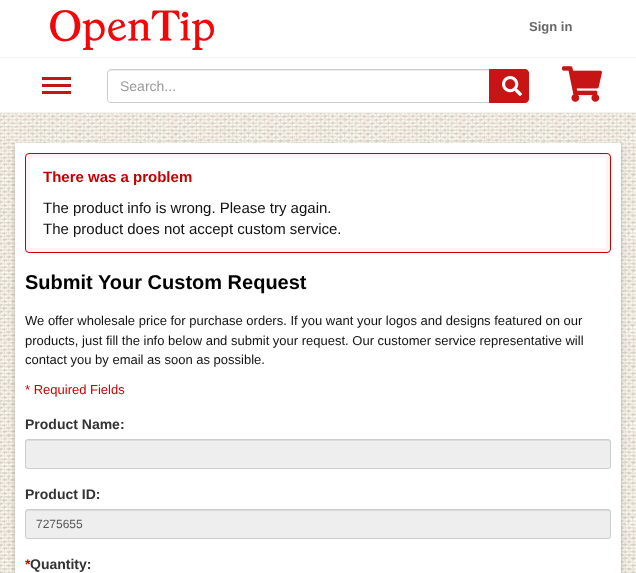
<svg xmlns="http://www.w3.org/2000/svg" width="636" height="573">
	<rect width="100%" height="100%" fill="#FFFFFF" />
	<image x="0" y="113" width="636" height="460" href="assets/img1.png" />
	<rect x="0" y="57" width="636" height="1" fill="#F2F2F2" />
	<image x="50" y="10" width="164" height="40" href="assets/img2.png" />
	<text x="529" y="31" font-family="Liberation Sans" font-size="13" font-weight="700" fill="#666666">Sign in</text>
	<rect x="0" y="112" width="636" height="1" fill="#F2F2F2" />
	<rect x="42" y="91" width="29" height="3" fill="#C71515" />
	<rect x="42" y="84" width="29" height="3" fill="#C71515" />
	<rect x="42" y="77" width="29" height="3" fill="#C71515" />
	<path d="M111 71H489V70H111C109 70 108 71 108 73V74C108 72 109 71 111 71Z" fill="#ECECEC" />
	<path d="M111 69.5H489.5V102.5H111C109 102.5 107.5 101 107.5 99V73C107.5 71 109 69.5 111 69.5Z" fill="none" stroke="#CCCCCC" />
	<text x="120" y="91" font-family="Liberation Sans" font-size="14" fill="#999999">Search...</text>
	<path d="M489.5 69.5H525C527 69.5 528.5 71 528.5 73V99C528.5 101 527 102.5 525 102.5H489.5Z" fill="#C71515" stroke="#C71515" />
	<image x="502" y="76" width="20" height="20" href="assets/img3.png" />
	<image x="562" y="66" width="40" height="36" href="assets/img4.png" />
	<rect x="15" y="145" width="606" height="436" fill="#000000" fill-opacity="0.26" filter="blur(2.5px)" />
	<rect x="15" y="143" width="606" height="430" fill="#FFFFFF" />
	<rect x="28" y="156" width="580" height="94" rx="1" fill="none" stroke="#FCF4F4" stroke-width="4" />
	<rect x="25.5" y="153.5" width="585" height="99" rx="3.5" fill="none" stroke="#C40000" />
	<text x="43" y="182" font-family="Liberation Sans" font-size="15" font-weight="700" fill="#C40000">There was a problem</text>
	<g font-family="Liberation Sans" font-size="15" fill="#111111">
		<text x="43" y="213">The product info is wrong. Please try again.</text>
		<text x="43" y="234">The product does not accept custom service.</text>
	</g>
	<text x="25" y="289" font-family="Liberation Sans" font-size="20" font-weight="700" fill="#000000">Submit Your Custom Request</text>
	<g font-family="Liberation Sans" font-size="13" fill="#111111">
		<text x="25" y="325">We offer wholesale price for purchase orders. If you want your logos and designs featured on our</text>
		<text x="25" y="345">products, just fill the info below and submit your request. Our customer service representative will</text>
		<text x="25" y="364">contact you by email as soon as possible.</text>
	</g>
	<text x="25" y="394" font-family="Liberation Sans" font-size="13" fill="#CC0000">* Required Fields</text>
	<text x="25" y="429" font-family="Liberation Sans" font-size="14" font-weight="700" fill="#333333">Product Name:</text>
	<rect x="25" y="439" width="586" height="30" rx="3" fill="#EEEEEE" />
	<path d="M28 441H608C609 441 610 442 610 443C610 442 610 440 608 440H28L26 441V443C26 442 27 441 28 441Z" fill="#DCDCDC" />
	<rect x="25.5" y="439.5" width="585" height="29" rx="2.5" fill="none" stroke="#CCCCCC" />
	<text x="25" y="499" font-family="Liberation Sans" font-size="14" font-weight="700" fill="#333333">Product ID:</text>
	<rect x="25" y="509" width="586" height="30" rx="3" fill="#EEEEEE" />
	<path d="M28 511H608C609 511 610 512 610 513C610 512 610 510 608 510H28L26 511V513C26 512 27 511 28 511Z" fill="#DCDCDC" />
	<rect x="25.5" y="509.5" width="585" height="29" rx="2.5" fill="none" stroke="#CCCCCC" />
	<text x="36" y="528" font-family="Liberation Sans" font-size="12" fill="#555555">7275655</text>
	<text x="25" y="569" font-family="Liberation Sans" font-size="14" font-weight="700" fill="#CC0000">*</text>
	<text x="30" y="569" font-family="Liberation Sans" font-size="14" font-weight="700" fill="#333333">Quantity:</text>
</svg>
